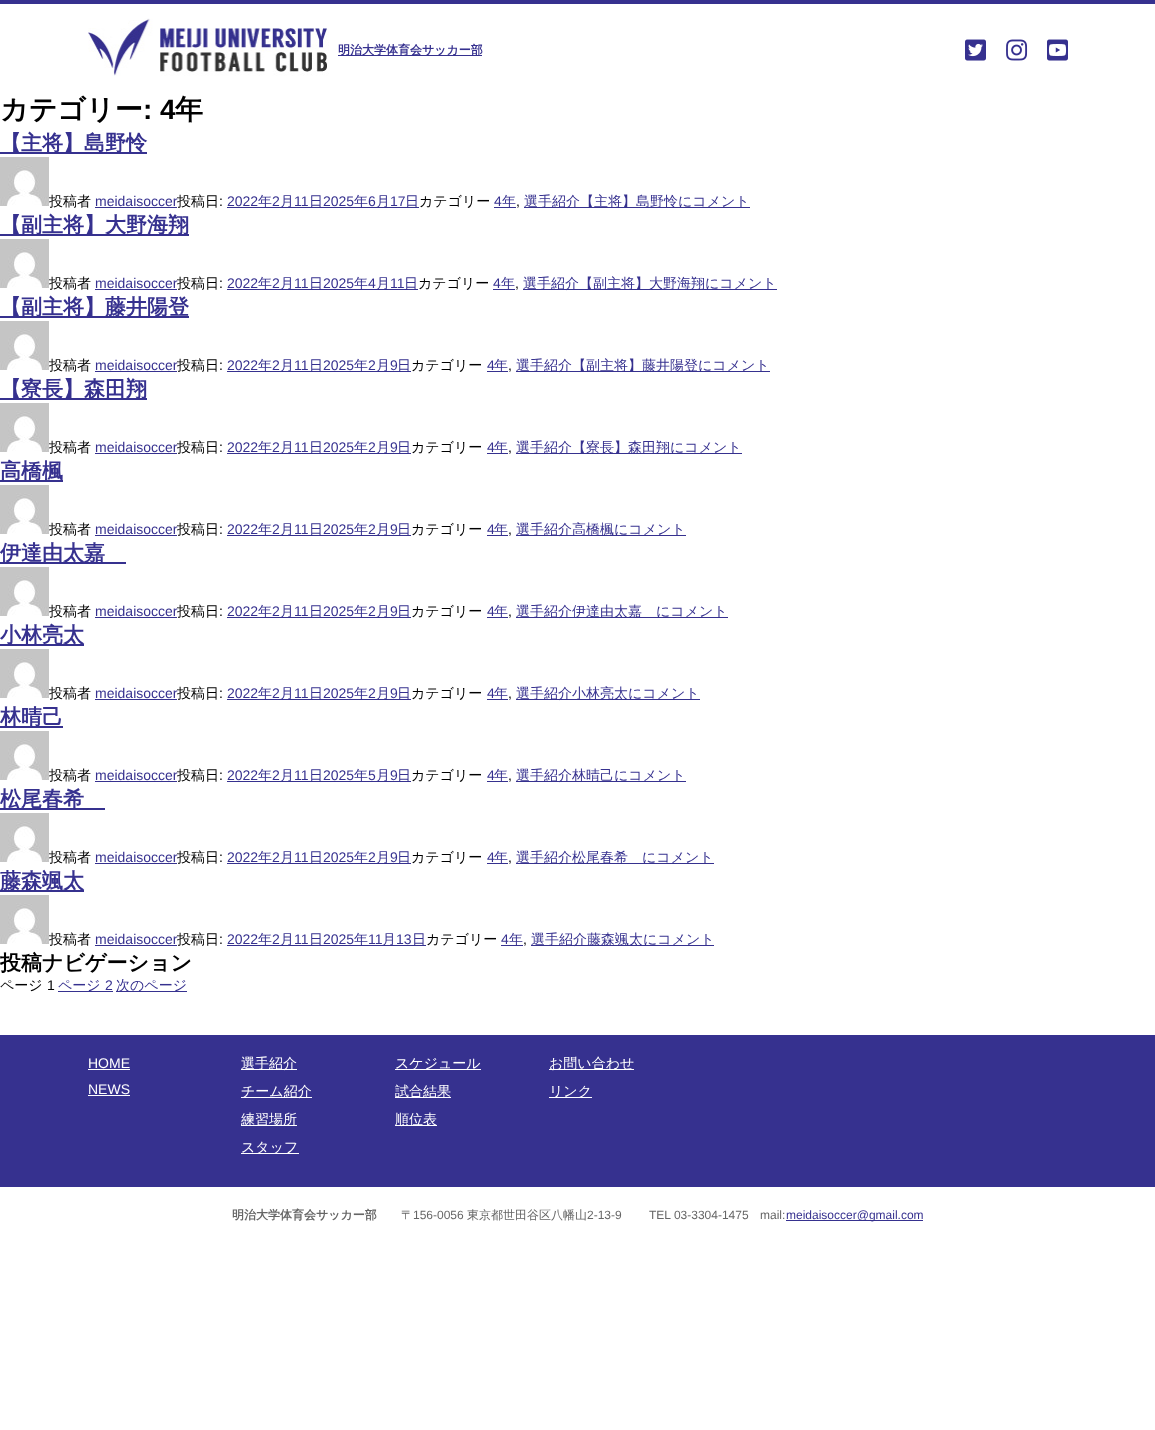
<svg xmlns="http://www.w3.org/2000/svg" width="1155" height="1430">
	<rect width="100%" height="100%" fill="#FFFFFF" />
	<rect x="0" y="0" width="1155" height="4" fill="#36318F" />
	<image x="88" y="18" width="241" height="58" href="assets/img1.png" />
	<rect x="338" y="55" width="144" height="1" fill="#36318F" />
	<text x="338" y="54" font-family="WenQuanYi Zen Hei" font-size="12" font-weight="700" fill="#36318F">明治大学体育会サッカー部</text>
	<image x="965" y="39" width="21" height="22" href="assets/img2.png" />
	<image x="1006" y="39" width="22" height="22" href="assets/img3.png" />
	<image x="1047" y="39" width="21" height="22" href="assets/img4.png" />
	<text x="0" y="119" font-family="WenQuanYi Zen Hei" font-size="28" font-weight="700" fill="#000000">カテゴリー</text>
	<text x="143" y="119" font-family="Liberation Sans" font-size="28" font-weight="700" fill="#000000">: 4</text>
	<text x="175" y="119" font-family="WenQuanYi Zen Hei" font-size="28" font-weight="700" fill="#000000">年</text>
	<rect x="0" y="152" width="147" height="2" fill="#36318F" />
	<text x="0" y="150" font-family="WenQuanYi Zen Hei" font-size="21" font-weight="700" fill="#36318F">【主将】島野怜</text>
	<image x="0" y="157" width="49" height="49" href="assets/img5.png" />
	<text x="49" y="206" font-family="WenQuanYi Zen Hei" font-size="14" font-weight="500" fill="#000000">投稿者</text>
	<text x="95" y="206" font-family="Liberation Sans" font-size="14" fill="#36318F">meidaisoccer</text>
	<rect x="95" y="207" width="82" height="1" fill="#36318F" />
	<text x="177" y="206" font-family="WenQuanYi Zen Hei" font-size="14" font-weight="500" fill="#000000">投稿日</text>
	<text x="219" y="206" font-family="Liberation Sans" font-size="14" fill="#000000">:</text>
	<text x="227" y="206" font-family="Liberation Sans" font-size="14" fill="#36318F">2022</text>
	<rect x="227" y="207" width="192" height="1" fill="#36318F" />
	<text x="258" y="206" font-family="WenQuanYi Zen Hei" font-size="14" font-weight="500" fill="#36318F">年</text>
	<text x="272" y="206" font-family="Liberation Sans" font-size="14" fill="#36318F">2</text>
	<text x="280" y="206" font-family="WenQuanYi Zen Hei" font-size="14" font-weight="500" fill="#36318F">月</text>
	<text x="294" y="206" font-family="Liberation Sans" font-size="14" fill="#36318F">11</text>
	<text x="309" y="206" font-family="WenQuanYi Zen Hei" font-size="14" font-weight="500" fill="#36318F">日</text>
	<text x="323" y="206" font-family="Liberation Sans" font-size="14" fill="#36318F">2025</text>
	<text x="354" y="206" font-family="WenQuanYi Zen Hei" font-size="14" font-weight="500" fill="#36318F">年</text>
	<text x="368" y="206" font-family="Liberation Sans" font-size="14" fill="#36318F">6</text>
	<text x="376" y="206" font-family="WenQuanYi Zen Hei" font-size="14" font-weight="500" fill="#36318F">月</text>
	<text x="390" y="206" font-family="Liberation Sans" font-size="14" fill="#36318F">17</text>
	<text x="405" y="206" font-family="WenQuanYi Zen Hei" font-size="14" font-weight="500" fill="#36318F">日</text>
	<text x="419" y="206" font-family="WenQuanYi Zen Hei" font-size="14" font-weight="500" fill="#000000">カテゴリー</text>
	<text x="494" y="206" font-family="Liberation Sans" font-size="14" fill="#36318F">4</text>
	<rect x="494" y="207" width="22" height="1" fill="#36318F" />
	<text x="502" y="206" font-family="WenQuanYi Zen Hei" font-size="14" font-weight="500" fill="#36318F">年</text>
	<text x="516" y="206" font-family="Liberation Sans" font-size="14" fill="#000000">,</text>
	<rect x="524" y="207" width="226" height="1" fill="#36318F" />
	<text x="524" y="206" font-family="WenQuanYi Zen Hei" font-size="14" font-weight="500" fill="#36318F">選手紹介【主将】島野怜にコメント</text>
	<rect x="0" y="234" width="189" height="2" fill="#36318F" />
	<text x="0" y="232" font-family="WenQuanYi Zen Hei" font-size="21" font-weight="700" fill="#36318F">【副主将】大野海翔</text>
	<image x="0" y="239" width="49" height="49" href="assets/img5.png" />
	<text x="49" y="288" font-family="WenQuanYi Zen Hei" font-size="14" font-weight="500" fill="#000000">投稿者</text>
	<text x="95" y="288" font-family="Liberation Sans" font-size="14" fill="#36318F">meidaisoccer</text>
	<rect x="95" y="289" width="82" height="1" fill="#36318F" />
	<text x="177" y="288" font-family="WenQuanYi Zen Hei" font-size="14" font-weight="500" fill="#000000">投稿日</text>
	<text x="219" y="288" font-family="Liberation Sans" font-size="14" fill="#000000">:</text>
	<text x="227" y="288" font-family="Liberation Sans" font-size="14" fill="#36318F">2022</text>
	<rect x="227" y="289" width="191" height="1" fill="#36318F" />
	<text x="258" y="288" font-family="WenQuanYi Zen Hei" font-size="14" font-weight="500" fill="#36318F">年</text>
	<text x="272" y="288" font-family="Liberation Sans" font-size="14" fill="#36318F">2</text>
	<text x="280" y="288" font-family="WenQuanYi Zen Hei" font-size="14" font-weight="500" fill="#36318F">月</text>
	<text x="294" y="288" font-family="Liberation Sans" font-size="14" fill="#36318F">11</text>
	<text x="309" y="288" font-family="WenQuanYi Zen Hei" font-size="14" font-weight="500" fill="#36318F">日</text>
	<text x="323" y="288" font-family="Liberation Sans" font-size="14" fill="#36318F">2025</text>
	<text x="354" y="288" font-family="WenQuanYi Zen Hei" font-size="14" font-weight="500" fill="#36318F">年</text>
	<text x="368" y="288" font-family="Liberation Sans" font-size="14" fill="#36318F">4</text>
	<text x="376" y="288" font-family="WenQuanYi Zen Hei" font-size="14" font-weight="500" fill="#36318F">月</text>
	<text x="390" y="288" font-family="Liberation Sans" font-size="14" fill="#36318F">11</text>
	<text x="404" y="288" font-family="WenQuanYi Zen Hei" font-size="14" font-weight="500" fill="#36318F">日</text>
	<text x="418" y="288" font-family="WenQuanYi Zen Hei" font-size="14" font-weight="500" fill="#000000">カテゴリー</text>
	<text x="493" y="288" font-family="Liberation Sans" font-size="14" fill="#36318F">4</text>
	<rect x="493" y="289" width="22" height="1" fill="#36318F" />
	<text x="501" y="288" font-family="WenQuanYi Zen Hei" font-size="14" font-weight="500" fill="#36318F">年</text>
	<text x="515" y="288" font-family="Liberation Sans" font-size="14" fill="#000000">,</text>
	<rect x="523" y="289" width="254" height="1" fill="#36318F" />
	<text x="523" y="288" font-family="WenQuanYi Zen Hei" font-size="14" font-weight="500" fill="#36318F">選手紹介【副主将】大野海翔にコメント</text>
	<rect x="0" y="316" width="189" height="2" fill="#36318F" />
	<text x="0" y="314" font-family="WenQuanYi Zen Hei" font-size="21" font-weight="700" fill="#36318F">【副主将】藤井陽登</text>
	<image x="0" y="321" width="49" height="49" href="assets/img5.png" />
	<text x="49" y="370" font-family="WenQuanYi Zen Hei" font-size="14" font-weight="500" fill="#000000">投稿者</text>
	<text x="95" y="370" font-family="Liberation Sans" font-size="14" fill="#36318F">meidaisoccer</text>
	<rect x="95" y="371" width="82" height="1" fill="#36318F" />
	<text x="177" y="370" font-family="WenQuanYi Zen Hei" font-size="14" font-weight="500" fill="#000000">投稿日</text>
	<text x="219" y="370" font-family="Liberation Sans" font-size="14" fill="#000000">:</text>
	<text x="227" y="370" font-family="Liberation Sans" font-size="14" fill="#36318F">2022</text>
	<rect x="227" y="371" width="184" height="1" fill="#36318F" />
	<text x="258" y="370" font-family="WenQuanYi Zen Hei" font-size="14" font-weight="500" fill="#36318F">年</text>
	<text x="272" y="370" font-family="Liberation Sans" font-size="14" fill="#36318F">2</text>
	<text x="280" y="370" font-family="WenQuanYi Zen Hei" font-size="14" font-weight="500" fill="#36318F">月</text>
	<text x="294" y="370" font-family="Liberation Sans" font-size="14" fill="#36318F">11</text>
	<text x="309" y="370" font-family="WenQuanYi Zen Hei" font-size="14" font-weight="500" fill="#36318F">日</text>
	<text x="323" y="370" font-family="Liberation Sans" font-size="14" fill="#36318F">2025</text>
	<text x="354" y="370" font-family="WenQuanYi Zen Hei" font-size="14" font-weight="500" fill="#36318F">年</text>
	<text x="368" y="370" font-family="Liberation Sans" font-size="14" fill="#36318F">2</text>
	<text x="376" y="370" font-family="WenQuanYi Zen Hei" font-size="14" font-weight="500" fill="#36318F">月</text>
	<text x="390" y="370" font-family="Liberation Sans" font-size="14" fill="#36318F">9</text>
	<text x="397" y="370" font-family="WenQuanYi Zen Hei" font-size="14" font-weight="500" fill="#36318F">日</text>
	<text x="411" y="370" font-family="WenQuanYi Zen Hei" font-size="14" font-weight="500" fill="#000000">カテゴリー</text>
	<text x="487" y="370" font-family="Liberation Sans" font-size="14" fill="#36318F">4</text>
	<rect x="487" y="371" width="21" height="1" fill="#36318F" />
	<text x="494" y="370" font-family="WenQuanYi Zen Hei" font-size="14" font-weight="500" fill="#36318F">年</text>
	<text x="508" y="370" font-family="Liberation Sans" font-size="14" fill="#000000">,</text>
	<rect x="516" y="371" width="254" height="1" fill="#36318F" />
	<text x="516" y="370" font-family="WenQuanYi Zen Hei" font-size="14" font-weight="500" fill="#36318F">選手紹介【副主将】藤井陽登にコメント</text>
	<rect x="0" y="398" width="147" height="2" fill="#36318F" />
	<text x="0" y="396" font-family="WenQuanYi Zen Hei" font-size="21" font-weight="700" fill="#36318F">【寮長】森田翔</text>
	<image x="0" y="403" width="49" height="49" href="assets/img5.png" />
	<text x="49" y="452" font-family="WenQuanYi Zen Hei" font-size="14" font-weight="500" fill="#000000">投稿者</text>
	<text x="95" y="452" font-family="Liberation Sans" font-size="14" fill="#36318F">meidaisoccer</text>
	<rect x="95" y="453" width="82" height="1" fill="#36318F" />
	<text x="177" y="452" font-family="WenQuanYi Zen Hei" font-size="14" font-weight="500" fill="#000000">投稿日</text>
	<text x="219" y="452" font-family="Liberation Sans" font-size="14" fill="#000000">:</text>
	<text x="227" y="452" font-family="Liberation Sans" font-size="14" fill="#36318F">2022</text>
	<rect x="227" y="453" width="184" height="1" fill="#36318F" />
	<text x="258" y="452" font-family="WenQuanYi Zen Hei" font-size="14" font-weight="500" fill="#36318F">年</text>
	<text x="272" y="452" font-family="Liberation Sans" font-size="14" fill="#36318F">2</text>
	<text x="280" y="452" font-family="WenQuanYi Zen Hei" font-size="14" font-weight="500" fill="#36318F">月</text>
	<text x="294" y="452" font-family="Liberation Sans" font-size="14" fill="#36318F">11</text>
	<text x="309" y="452" font-family="WenQuanYi Zen Hei" font-size="14" font-weight="500" fill="#36318F">日</text>
	<text x="323" y="452" font-family="Liberation Sans" font-size="14" fill="#36318F">2025</text>
	<text x="354" y="452" font-family="WenQuanYi Zen Hei" font-size="14" font-weight="500" fill="#36318F">年</text>
	<text x="368" y="452" font-family="Liberation Sans" font-size="14" fill="#36318F">2</text>
	<text x="376" y="452" font-family="WenQuanYi Zen Hei" font-size="14" font-weight="500" fill="#36318F">月</text>
	<text x="390" y="452" font-family="Liberation Sans" font-size="14" fill="#36318F">9</text>
	<text x="397" y="452" font-family="WenQuanYi Zen Hei" font-size="14" font-weight="500" fill="#36318F">日</text>
	<text x="411" y="452" font-family="WenQuanYi Zen Hei" font-size="14" font-weight="500" fill="#000000">カテゴリー</text>
	<text x="487" y="452" font-family="Liberation Sans" font-size="14" fill="#36318F">4</text>
	<rect x="487" y="453" width="21" height="1" fill="#36318F" />
	<text x="494" y="452" font-family="WenQuanYi Zen Hei" font-size="14" font-weight="500" fill="#36318F">年</text>
	<text x="508" y="452" font-family="Liberation Sans" font-size="14" fill="#000000">,</text>
	<rect x="516" y="453" width="226" height="1" fill="#36318F" />
	<text x="516" y="452" font-family="WenQuanYi Zen Hei" font-size="14" font-weight="500" fill="#36318F">選手紹介【寮長】森田翔にコメント</text>
	<rect x="0" y="480" width="63" height="2" fill="#36318F" />
	<text x="0" y="478" font-family="WenQuanYi Zen Hei" font-size="21" font-weight="700" fill="#36318F">高橋楓</text>
	<image x="0" y="485" width="49" height="49" href="assets/img5.png" />
	<text x="49" y="534" font-family="WenQuanYi Zen Hei" font-size="14" font-weight="500" fill="#000000">投稿者</text>
	<text x="95" y="534" font-family="Liberation Sans" font-size="14" fill="#36318F">meidaisoccer</text>
	<rect x="95" y="535" width="82" height="1" fill="#36318F" />
	<text x="177" y="534" font-family="WenQuanYi Zen Hei" font-size="14" font-weight="500" fill="#000000">投稿日</text>
	<text x="219" y="534" font-family="Liberation Sans" font-size="14" fill="#000000">:</text>
	<text x="227" y="534" font-family="Liberation Sans" font-size="14" fill="#36318F">2022</text>
	<rect x="227" y="535" width="184" height="1" fill="#36318F" />
	<text x="258" y="534" font-family="WenQuanYi Zen Hei" font-size="14" font-weight="500" fill="#36318F">年</text>
	<text x="272" y="534" font-family="Liberation Sans" font-size="14" fill="#36318F">2</text>
	<text x="280" y="534" font-family="WenQuanYi Zen Hei" font-size="14" font-weight="500" fill="#36318F">月</text>
	<text x="294" y="534" font-family="Liberation Sans" font-size="14" fill="#36318F">11</text>
	<text x="309" y="534" font-family="WenQuanYi Zen Hei" font-size="14" font-weight="500" fill="#36318F">日</text>
	<text x="323" y="534" font-family="Liberation Sans" font-size="14" fill="#36318F">2025</text>
	<text x="354" y="534" font-family="WenQuanYi Zen Hei" font-size="14" font-weight="500" fill="#36318F">年</text>
	<text x="368" y="534" font-family="Liberation Sans" font-size="14" fill="#36318F">2</text>
	<text x="376" y="534" font-family="WenQuanYi Zen Hei" font-size="14" font-weight="500" fill="#36318F">月</text>
	<text x="390" y="534" font-family="Liberation Sans" font-size="14" fill="#36318F">9</text>
	<text x="397" y="534" font-family="WenQuanYi Zen Hei" font-size="14" font-weight="500" fill="#36318F">日</text>
	<text x="411" y="534" font-family="WenQuanYi Zen Hei" font-size="14" font-weight="500" fill="#000000">カテゴリー</text>
	<text x="487" y="534" font-family="Liberation Sans" font-size="14" fill="#36318F">4</text>
	<rect x="487" y="535" width="21" height="1" fill="#36318F" />
	<text x="494" y="534" font-family="WenQuanYi Zen Hei" font-size="14" font-weight="500" fill="#36318F">年</text>
	<text x="508" y="534" font-family="Liberation Sans" font-size="14" fill="#000000">,</text>
	<rect x="516" y="535" width="170" height="1" fill="#36318F" />
	<text x="516" y="534" font-family="WenQuanYi Zen Hei" font-size="14" font-weight="500" fill="#36318F">選手紹介高橋楓にコメント</text>
	<rect x="0" y="562" width="126" height="2" fill="#36318F" />
	<text x="0" y="560" font-family="WenQuanYi Zen Hei" font-size="21" font-weight="700" fill="#36318F">伊達由太嘉</text>
	<image x="0" y="567" width="49" height="49" href="assets/img5.png" />
	<text x="49" y="616" font-family="WenQuanYi Zen Hei" font-size="14" font-weight="500" fill="#000000">投稿者</text>
	<text x="95" y="616" font-family="Liberation Sans" font-size="14" fill="#36318F">meidaisoccer</text>
	<rect x="95" y="617" width="82" height="1" fill="#36318F" />
	<text x="177" y="616" font-family="WenQuanYi Zen Hei" font-size="14" font-weight="500" fill="#000000">投稿日</text>
	<text x="219" y="616" font-family="Liberation Sans" font-size="14" fill="#000000">:</text>
	<text x="227" y="616" font-family="Liberation Sans" font-size="14" fill="#36318F">2022</text>
	<rect x="227" y="617" width="184" height="1" fill="#36318F" />
	<text x="258" y="616" font-family="WenQuanYi Zen Hei" font-size="14" font-weight="500" fill="#36318F">年</text>
	<text x="272" y="616" font-family="Liberation Sans" font-size="14" fill="#36318F">2</text>
	<text x="280" y="616" font-family="WenQuanYi Zen Hei" font-size="14" font-weight="500" fill="#36318F">月</text>
	<text x="294" y="616" font-family="Liberation Sans" font-size="14" fill="#36318F">11</text>
	<text x="309" y="616" font-family="WenQuanYi Zen Hei" font-size="14" font-weight="500" fill="#36318F">日</text>
	<text x="323" y="616" font-family="Liberation Sans" font-size="14" fill="#36318F">2025</text>
	<text x="354" y="616" font-family="WenQuanYi Zen Hei" font-size="14" font-weight="500" fill="#36318F">年</text>
	<text x="368" y="616" font-family="Liberation Sans" font-size="14" fill="#36318F">2</text>
	<text x="376" y="616" font-family="WenQuanYi Zen Hei" font-size="14" font-weight="500" fill="#36318F">月</text>
	<text x="390" y="616" font-family="Liberation Sans" font-size="14" fill="#36318F">9</text>
	<text x="397" y="616" font-family="WenQuanYi Zen Hei" font-size="14" font-weight="500" fill="#36318F">日</text>
	<text x="411" y="616" font-family="WenQuanYi Zen Hei" font-size="14" font-weight="500" fill="#000000">カテゴリー</text>
	<text x="487" y="616" font-family="Liberation Sans" font-size="14" fill="#36318F">4</text>
	<rect x="487" y="617" width="21" height="1" fill="#36318F" />
	<text x="494" y="616" font-family="WenQuanYi Zen Hei" font-size="14" font-weight="500" fill="#36318F">年</text>
	<text x="508" y="616" font-family="Liberation Sans" font-size="14" fill="#000000">,</text>
	<rect x="516" y="617" width="212" height="1" fill="#36318F" />
	<text x="516" y="616" font-family="WenQuanYi Zen Hei" font-size="14" font-weight="500" fill="#36318F">選手紹介伊達由太嘉　にコメント</text>
	<rect x="0" y="644" width="84" height="2" fill="#36318F" />
	<text x="0" y="642" font-family="WenQuanYi Zen Hei" font-size="21" font-weight="700" fill="#36318F">小林亮太</text>
	<image x="0" y="649" width="49" height="49" href="assets/img5.png" />
	<text x="49" y="698" font-family="WenQuanYi Zen Hei" font-size="14" font-weight="500" fill="#000000">投稿者</text>
	<text x="95" y="698" font-family="Liberation Sans" font-size="14" fill="#36318F">meidaisoccer</text>
	<rect x="95" y="699" width="82" height="1" fill="#36318F" />
	<text x="177" y="698" font-family="WenQuanYi Zen Hei" font-size="14" font-weight="500" fill="#000000">投稿日</text>
	<text x="219" y="698" font-family="Liberation Sans" font-size="14" fill="#000000">:</text>
	<text x="227" y="698" font-family="Liberation Sans" font-size="14" fill="#36318F">2022</text>
	<rect x="227" y="699" width="184" height="1" fill="#36318F" />
	<text x="258" y="698" font-family="WenQuanYi Zen Hei" font-size="14" font-weight="500" fill="#36318F">年</text>
	<text x="272" y="698" font-family="Liberation Sans" font-size="14" fill="#36318F">2</text>
	<text x="280" y="698" font-family="WenQuanYi Zen Hei" font-size="14" font-weight="500" fill="#36318F">月</text>
	<text x="294" y="698" font-family="Liberation Sans" font-size="14" fill="#36318F">11</text>
	<text x="309" y="698" font-family="WenQuanYi Zen Hei" font-size="14" font-weight="500" fill="#36318F">日</text>
	<text x="323" y="698" font-family="Liberation Sans" font-size="14" fill="#36318F">2025</text>
	<text x="354" y="698" font-family="WenQuanYi Zen Hei" font-size="14" font-weight="500" fill="#36318F">年</text>
	<text x="368" y="698" font-family="Liberation Sans" font-size="14" fill="#36318F">2</text>
	<text x="376" y="698" font-family="WenQuanYi Zen Hei" font-size="14" font-weight="500" fill="#36318F">月</text>
	<text x="390" y="698" font-family="Liberation Sans" font-size="14" fill="#36318F">9</text>
	<text x="397" y="698" font-family="WenQuanYi Zen Hei" font-size="14" font-weight="500" fill="#36318F">日</text>
	<text x="411" y="698" font-family="WenQuanYi Zen Hei" font-size="14" font-weight="500" fill="#000000">カテゴリー</text>
	<text x="487" y="698" font-family="Liberation Sans" font-size="14" fill="#36318F">4</text>
	<rect x="487" y="699" width="21" height="1" fill="#36318F" />
	<text x="494" y="698" font-family="WenQuanYi Zen Hei" font-size="14" font-weight="500" fill="#36318F">年</text>
	<text x="508" y="698" font-family="Liberation Sans" font-size="14" fill="#000000">,</text>
	<rect x="516" y="699" width="184" height="1" fill="#36318F" />
	<text x="516" y="698" font-family="WenQuanYi Zen Hei" font-size="14" font-weight="500" fill="#36318F">選手紹介小林亮太にコメント</text>
	<rect x="0" y="726" width="63" height="2" fill="#36318F" />
	<text x="0" y="724" font-family="WenQuanYi Zen Hei" font-size="21" font-weight="700" fill="#36318F">林晴己</text>
	<image x="0" y="731" width="49" height="49" href="assets/img5.png" />
	<text x="49" y="780" font-family="WenQuanYi Zen Hei" font-size="14" font-weight="500" fill="#000000">投稿者</text>
	<text x="95" y="780" font-family="Liberation Sans" font-size="14" fill="#36318F">meidaisoccer</text>
	<rect x="95" y="781" width="82" height="1" fill="#36318F" />
	<text x="177" y="780" font-family="WenQuanYi Zen Hei" font-size="14" font-weight="500" fill="#000000">投稿日</text>
	<text x="219" y="780" font-family="Liberation Sans" font-size="14" fill="#000000">:</text>
	<text x="227" y="780" font-family="Liberation Sans" font-size="14" fill="#36318F">2022</text>
	<rect x="227" y="781" width="184" height="1" fill="#36318F" />
	<text x="258" y="780" font-family="WenQuanYi Zen Hei" font-size="14" font-weight="500" fill="#36318F">年</text>
	<text x="272" y="780" font-family="Liberation Sans" font-size="14" fill="#36318F">2</text>
	<text x="280" y="780" font-family="WenQuanYi Zen Hei" font-size="14" font-weight="500" fill="#36318F">月</text>
	<text x="294" y="780" font-family="Liberation Sans" font-size="14" fill="#36318F">11</text>
	<text x="309" y="780" font-family="WenQuanYi Zen Hei" font-size="14" font-weight="500" fill="#36318F">日</text>
	<text x="323" y="780" font-family="Liberation Sans" font-size="14" fill="#36318F">2025</text>
	<text x="354" y="780" font-family="WenQuanYi Zen Hei" font-size="14" font-weight="500" fill="#36318F">年</text>
	<text x="368" y="780" font-family="Liberation Sans" font-size="14" fill="#36318F">5</text>
	<text x="376" y="780" font-family="WenQuanYi Zen Hei" font-size="14" font-weight="500" fill="#36318F">月</text>
	<text x="390" y="780" font-family="Liberation Sans" font-size="14" fill="#36318F">9</text>
	<text x="397" y="780" font-family="WenQuanYi Zen Hei" font-size="14" font-weight="500" fill="#36318F">日</text>
	<text x="411" y="780" font-family="WenQuanYi Zen Hei" font-size="14" font-weight="500" fill="#000000">カテゴリー</text>
	<text x="487" y="780" font-family="Liberation Sans" font-size="14" fill="#36318F">4</text>
	<rect x="487" y="781" width="21" height="1" fill="#36318F" />
	<text x="494" y="780" font-family="WenQuanYi Zen Hei" font-size="14" font-weight="500" fill="#36318F">年</text>
	<text x="508" y="780" font-family="Liberation Sans" font-size="14" fill="#000000">,</text>
	<rect x="516" y="781" width="170" height="1" fill="#36318F" />
	<text x="516" y="780" font-family="WenQuanYi Zen Hei" font-size="14" font-weight="500" fill="#36318F">選手紹介林晴己にコメント</text>
	<rect x="0" y="808" width="105" height="2" fill="#36318F" />
	<text x="0" y="806" font-family="WenQuanYi Zen Hei" font-size="21" font-weight="700" fill="#36318F">松尾春希</text>
	<image x="0" y="813" width="49" height="49" href="assets/img5.png" />
	<text x="49" y="862" font-family="WenQuanYi Zen Hei" font-size="14" font-weight="500" fill="#000000">投稿者</text>
	<text x="95" y="862" font-family="Liberation Sans" font-size="14" fill="#36318F">meidaisoccer</text>
	<rect x="95" y="863" width="82" height="1" fill="#36318F" />
	<text x="177" y="862" font-family="WenQuanYi Zen Hei" font-size="14" font-weight="500" fill="#000000">投稿日</text>
	<text x="219" y="862" font-family="Liberation Sans" font-size="14" fill="#000000">:</text>
	<text x="227" y="862" font-family="Liberation Sans" font-size="14" fill="#36318F">2022</text>
	<rect x="227" y="863" width="184" height="1" fill="#36318F" />
	<text x="258" y="862" font-family="WenQuanYi Zen Hei" font-size="14" font-weight="500" fill="#36318F">年</text>
	<text x="272" y="862" font-family="Liberation Sans" font-size="14" fill="#36318F">2</text>
	<text x="280" y="862" font-family="WenQuanYi Zen Hei" font-size="14" font-weight="500" fill="#36318F">月</text>
	<text x="294" y="862" font-family="Liberation Sans" font-size="14" fill="#36318F">11</text>
	<text x="309" y="862" font-family="WenQuanYi Zen Hei" font-size="14" font-weight="500" fill="#36318F">日</text>
	<text x="323" y="862" font-family="Liberation Sans" font-size="14" fill="#36318F">2025</text>
	<text x="354" y="862" font-family="WenQuanYi Zen Hei" font-size="14" font-weight="500" fill="#36318F">年</text>
	<text x="368" y="862" font-family="Liberation Sans" font-size="14" fill="#36318F">2</text>
	<text x="376" y="862" font-family="WenQuanYi Zen Hei" font-size="14" font-weight="500" fill="#36318F">月</text>
	<text x="390" y="862" font-family="Liberation Sans" font-size="14" fill="#36318F">9</text>
	<text x="397" y="862" font-family="WenQuanYi Zen Hei" font-size="14" font-weight="500" fill="#36318F">日</text>
	<text x="411" y="862" font-family="WenQuanYi Zen Hei" font-size="14" font-weight="500" fill="#000000">カテゴリー</text>
	<text x="487" y="862" font-family="Liberation Sans" font-size="14" fill="#36318F">4</text>
	<rect x="487" y="863" width="21" height="1" fill="#36318F" />
	<text x="494" y="862" font-family="WenQuanYi Zen Hei" font-size="14" font-weight="500" fill="#36318F">年</text>
	<text x="508" y="862" font-family="Liberation Sans" font-size="14" fill="#000000">,</text>
	<rect x="516" y="863" width="198" height="1" fill="#36318F" />
	<text x="516" y="862" font-family="WenQuanYi Zen Hei" font-size="14" font-weight="500" fill="#36318F">選手紹介松尾春希　にコメント</text>
	<rect x="0" y="890" width="84" height="2" fill="#36318F" />
	<text x="0" y="888" font-family="WenQuanYi Zen Hei" font-size="21" font-weight="700" fill="#36318F">藤森颯太</text>
	<image x="0" y="895" width="49" height="49" href="assets/img5.png" />
	<text x="49" y="944" font-family="WenQuanYi Zen Hei" font-size="14" font-weight="500" fill="#000000">投稿者</text>
	<text x="95" y="944" font-family="Liberation Sans" font-size="14" fill="#36318F">meidaisoccer</text>
	<rect x="95" y="945" width="82" height="1" fill="#36318F" />
	<text x="177" y="944" font-family="WenQuanYi Zen Hei" font-size="14" font-weight="500" fill="#000000">投稿日</text>
	<text x="219" y="944" font-family="Liberation Sans" font-size="14" fill="#000000">:</text>
	<text x="227" y="944" font-family="Liberation Sans" font-size="14" fill="#36318F">2022</text>
	<rect x="227" y="945" width="199" height="1" fill="#36318F" />
	<text x="258" y="944" font-family="WenQuanYi Zen Hei" font-size="14" font-weight="500" fill="#36318F">年</text>
	<text x="272" y="944" font-family="Liberation Sans" font-size="14" fill="#36318F">2</text>
	<text x="280" y="944" font-family="WenQuanYi Zen Hei" font-size="14" font-weight="500" fill="#36318F">月</text>
	<text x="294" y="944" font-family="Liberation Sans" font-size="14" fill="#36318F">11</text>
	<text x="309" y="944" font-family="WenQuanYi Zen Hei" font-size="14" font-weight="500" fill="#36318F">日</text>
	<text x="323" y="944" font-family="Liberation Sans" font-size="14" fill="#36318F">2025</text>
	<text x="354" y="944" font-family="WenQuanYi Zen Hei" font-size="14" font-weight="500" fill="#36318F">年</text>
	<text x="368" y="944" font-family="Liberation Sans" font-size="14" fill="#36318F">11</text>
	<text x="382" y="944" font-family="WenQuanYi Zen Hei" font-size="14" font-weight="500" fill="#36318F">月</text>
	<text x="396" y="944" font-family="Liberation Sans" font-size="14" fill="#36318F">13</text>
	<text x="412" y="944" font-family="WenQuanYi Zen Hei" font-size="14" font-weight="500" fill="#36318F">日</text>
	<text x="426" y="944" font-family="WenQuanYi Zen Hei" font-size="14" font-weight="500" fill="#000000">カテゴリー</text>
	<text x="501" y="944" font-family="Liberation Sans" font-size="14" fill="#36318F">4</text>
	<rect x="501" y="945" width="22" height="1" fill="#36318F" />
	<text x="509" y="944" font-family="WenQuanYi Zen Hei" font-size="14" font-weight="500" fill="#36318F">年</text>
	<text x="523" y="944" font-family="Liberation Sans" font-size="14" fill="#000000">,</text>
	<rect x="531" y="945" width="183" height="1" fill="#36318F" />
	<text x="531" y="944" font-family="WenQuanYi Zen Hei" font-size="14" font-weight="500" fill="#36318F">選手紹介藤森颯太にコメント</text>
	<text x="0" y="970" font-family="WenQuanYi Zen Hei" font-size="21" font-weight="700" fill="#000000">投稿ナビゲーション</text>
	<text x="0" y="990" font-family="WenQuanYi Zen Hei" font-size="14" font-weight="500" fill="#000000">ページ</text>
	<text x="47" y="990" font-family="Liberation Sans" font-size="14" fill="#000000">1</text>
	<rect x="58" y="991" width="55" height="1" fill="#36318F" />
	<text x="58" y="990" font-family="WenQuanYi Zen Hei" font-size="14" font-weight="500" fill="#36318F">ページ</text>
	<text x="105" y="990" font-family="Liberation Sans" font-size="14" fill="#36318F">2</text>
	<rect x="116" y="991" width="71" height="1" fill="#36318F" />
	<text x="116" y="990" font-family="WenQuanYi Zen Hei" font-size="14" font-weight="500" fill="#36318F">次のページ</text>
	<rect x="0" y="1035" width="1155" height="152" fill="#36318F" />
	<text x="88" y="1068" font-family="Liberation Sans" font-size="14" fill="#FFFFFF">HOME</text>
	<rect x="88" y="1069" width="42" height="1" fill="#FFFFFF" />
	<text x="88" y="1094" font-family="Liberation Sans" font-size="14" fill="#FFFFFF">NEWS</text>
	<rect x="88" y="1095" width="42" height="1" fill="#FFFFFF" />
	<rect x="241" y="1069" width="56" height="1" fill="#FFFFFF" />
	<text x="241" y="1068" font-family="WenQuanYi Zen Hei" font-size="14" font-weight="500" fill="#FFFFFF">選手紹介</text>
	<rect x="241" y="1097" width="71" height="1" fill="#FFFFFF" />
	<text x="241" y="1096" font-family="WenQuanYi Zen Hei" font-size="14" font-weight="500" fill="#FFFFFF">チーム紹介</text>
	<rect x="241" y="1125" width="56" height="1" fill="#FFFFFF" />
	<text x="241" y="1124" font-family="WenQuanYi Zen Hei" font-size="14" font-weight="500" fill="#FFFFFF">練習場所</text>
	<rect x="241" y="1153" width="58" height="1" fill="#FFFFFF" />
	<text x="241" y="1152" font-family="WenQuanYi Zen Hei" font-size="14" font-weight="500" fill="#FFFFFF">スタッフ</text>
	<rect x="395" y="1069" width="86" height="1" fill="#FFFFFF" />
	<text x="395" y="1068" font-family="WenQuanYi Zen Hei" font-size="14" font-weight="500" fill="#FFFFFF">スケジュール</text>
	<rect x="395" y="1097" width="56" height="1" fill="#FFFFFF" />
	<text x="395" y="1096" font-family="WenQuanYi Zen Hei" font-size="14" font-weight="500" fill="#FFFFFF">試合結果</text>
	<rect x="395" y="1125" width="42" height="1" fill="#FFFFFF" />
	<text x="395" y="1124" font-family="WenQuanYi Zen Hei" font-size="14" font-weight="500" fill="#FFFFFF">順位表</text>
	<rect x="549" y="1069" width="85" height="1" fill="#FFFFFF" />
	<text x="549" y="1068" font-family="WenQuanYi Zen Hei" font-size="14" font-weight="500" fill="#FFFFFF">お問い合わせ</text>
	<rect x="549" y="1097" width="43" height="1" fill="#FFFFFF" />
	<text x="549" y="1096" font-family="WenQuanYi Zen Hei" font-size="14" font-weight="500" fill="#FFFFFF">リンク</text>
	<text x="232" y="1219" font-family="WenQuanYi Zen Hei" font-size="12" font-weight="700" fill="#666666">明治大学体育会サッカー部</text>
	<text x="401" y="1219" font-family="WenQuanYi Zen Hei" font-size="12" font-weight="500" fill="#666666">〒</text>
	<text x="413" y="1219" font-family="Liberation Sans" font-size="12" fill="#666666">156-0056</text>
	<text x="467" y="1219" font-family="WenQuanYi Zen Hei" font-size="12" font-weight="500" fill="#666666">東京都世田谷区八幡山</text>
	<g font-family="Liberation Sans" font-size="12" fill="#666666">
		<text x="587" y="1219">2-13-9</text>
		<text x="649" y="1219">TEL 03-3304-1475</text>
		<text x="760" y="1219">mail:</text>
	</g>
	<rect x="786" y="1220" width="137" height="1" fill="#36318F" />
	<text x="786" y="1219" font-family="Liberation Sans" font-size="12" fill="#36318F">meidaisoccer@gmail.com</text>
</svg>
